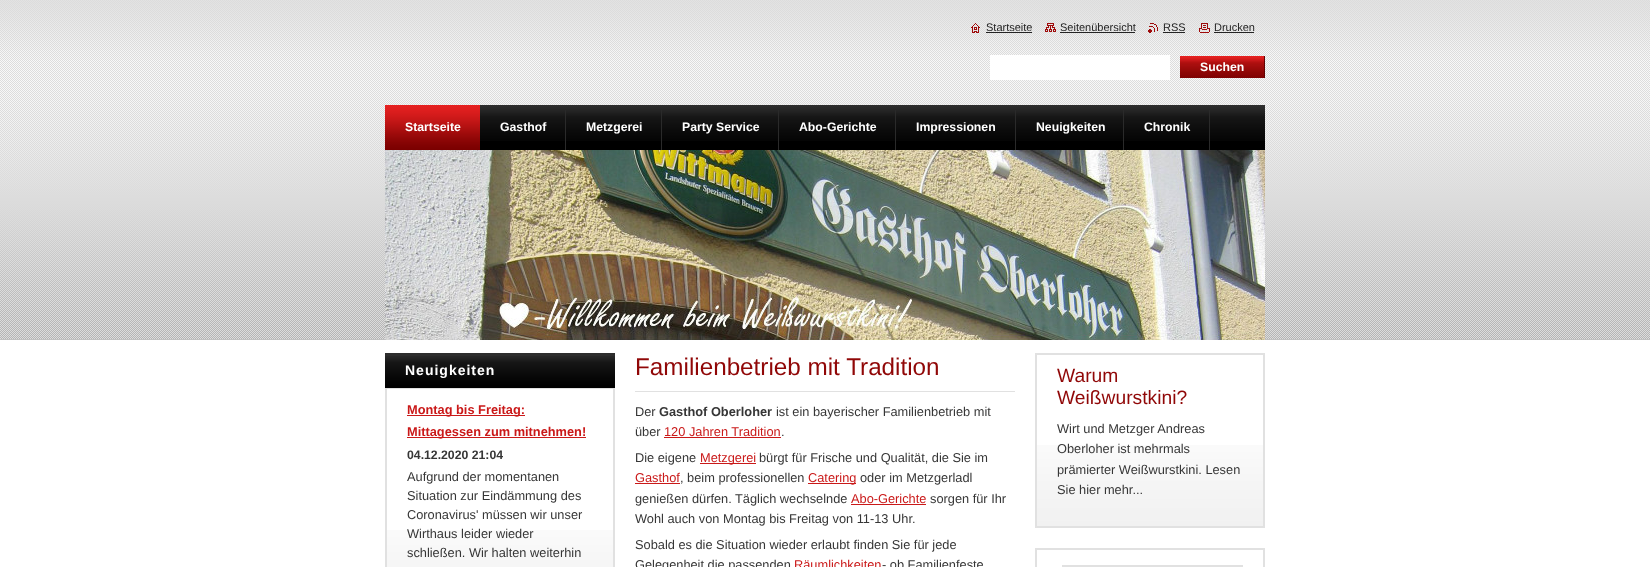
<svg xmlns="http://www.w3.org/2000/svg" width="1650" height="567">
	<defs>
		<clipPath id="clip1"><rect x="1057" y="550" width="186" height="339" /></clipPath>
	</defs>
	<rect width="100%" height="100%" fill="#FFFFFF" />
	<image x="0" y="0" width="1650" height="340" href="assets/img1.png" />
	<image x="971" y="23" width="9" height="10" href="assets/img2.png" />
	<text x="986" y="31" font-family="Liberation Sans" font-size="11" fill="#242424">Startseite</text>
	<rect x="986" y="32" width="46" height="1" fill="#242424" />
	<image x="1045" y="23" width="11" height="9" href="assets/img3.png" />
	<text x="1060" y="31" font-family="Liberation Sans" font-size="11" fill="#242424">Seitenübersicht</text>
	<rect x="1060" y="32" width="75" height="1" fill="#242424" />
	<image x="1148" y="23" width="10" height="10" href="assets/img4.png" />
	<text x="1163" y="31" font-family="Liberation Sans" font-size="11" fill="#242424">RSS</text>
	<rect x="1163" y="32" width="22" height="1" fill="#242424" />
	<image x="1199" y="23" width="11" height="10" href="assets/img5.png" />
	<text x="1214" y="31" font-family="Liberation Sans" font-size="11" fill="#242424">Drucken</text>
	<rect x="1214" y="32" width="40" height="1" fill="#242424" />
	<rect x="990" y="55" width="180" height="25" fill="#FFFFFF" />
	<rect x="1180" y="56" width="84" height="1" fill="#E52020" />
	<image x="1180" y="57" width="84" height="21" href="assets/img6.png" />
	<rect x="1264" y="56" width="1" height="22" fill="#610303" />
	<text x="1200" y="71" font-family="Liberation Sans" font-size="12.25" font-weight="700" fill="#FFFFFF">Suchen</text>
	<rect x="480" y="141" width="785" height="9" fill="#000000" />
	<image x="480" y="105" width="785" height="36" href="assets/img7.png" />
	<image x="385" y="105" width="95" height="45" href="assets/img8.png" />
	<text x="405" y="131" font-family="Liberation Sans" font-size="12.25" font-weight="700" fill="#FFFFFF">Startseite</text>
	<rect x="565" y="110" width="1" height="40" fill="#2A2A2A" />
	<text x="500" y="131" font-family="Liberation Sans" font-size="12.25" font-weight="700" fill="#FFFFFF">Gasthof</text>
	<rect x="661" y="110" width="1" height="40" fill="#2A2A2A" />
	<text x="586" y="131" font-family="Liberation Sans" font-size="12.25" font-weight="700" fill="#FFFFFF">Metzgerei</text>
	<rect x="778" y="110" width="1" height="40" fill="#2A2A2A" />
	<text x="682" y="131" font-family="Liberation Sans" font-size="12.25" font-weight="700" fill="#FFFFFF">Party Service</text>
	<rect x="895" y="110" width="1" height="40" fill="#2A2A2A" />
	<text x="799" y="131" font-family="Liberation Sans" font-size="12.25" font-weight="700" fill="#FFFFFF">Abo-Gerichte</text>
	<rect x="1015" y="110" width="1" height="40" fill="#2A2A2A" />
	<text x="916" y="131" font-family="Liberation Sans" font-size="12.25" font-weight="700" fill="#FFFFFF">Impressionen</text>
	<rect x="1123" y="110" width="1" height="40" fill="#2A2A2A" />
	<text x="1036" y="131" font-family="Liberation Sans" font-size="12.25" font-weight="700" fill="#FFFFFF">Neuigkeiten</text>
	<rect x="1209" y="110" width="1" height="40" fill="#2A2A2A" />
	<text x="1144" y="131" font-family="Liberation Sans" font-size="12.25" font-weight="700" fill="#FFFFFF">Chronik</text>
	<image x="385" y="150" width="880" height="190" href="assets/img9.png" />
	<image x="387" y="530" width="226" height="37" href="assets/img10.png" />
	<rect x="385" y="353" width="230" height="3" fill="#2D2D2D" />
	<image x="385" y="356" width="230" height="32" href="assets/img11.png" />
	<rect x="385" y="388" width="230" height="1" fill="#E1E1E1" />
	<text x="405" y="375" font-family="Liberation Sans" font-size="14" font-weight="700" letter-spacing="1" fill="#FFFFFF">Neuigkeiten</text>
	<rect x="613" y="389" width="2" height="178" fill="#E1E1E1" />
	<rect x="385" y="389" width="2" height="178" fill="#E1E1E1" />
	<rect x="407" y="415" width="118" height="1" fill="#CA1919" />
	<text x="407" y="414" font-family="Liberation Sans" font-size="12.8" font-weight="700" fill="#CA1919">Montag bis Freitag:</text>
	<rect x="407" y="437" width="179" height="1" fill="#CA1919" />
	<text x="407" y="436" font-family="Liberation Sans" font-size="12.8" font-weight="700" fill="#CA1919">Mittagessen zum mitnehmen!</text>
	<text x="407" y="459" font-family="Liberation Sans" font-size="12.25" font-weight="700" fill="#363636">04.12.2020 21:04</text>
	<g font-family="Liberation Sans" font-size="12.8" fill="#363636">
		<text x="407" y="481">Aufgrund der momentanen</text>
		<text x="407" y="500">Situation zur Eindämmung des</text>
		<text x="407" y="519">Coronavirus' müssen wir unser</text>
		<text x="407" y="538">Wirthaus leider wieder</text>
		<text x="407" y="557">schließen. Wir halten weiterhin</text>
	</g>
	<rect x="635" y="391" width="380" height="1" fill="#E1E1E1" />
	<text x="635" y="375" font-family="Liberation Sans" font-size="24.25" fill="#900707">Familienbetrieb mit Tradition</text>
	<text x="635" y="416" font-family="Liberation Sans" font-size="12.8" fill="#363636">Der</text>
	<text x="659" y="416" font-family="Liberation Sans" font-size="12.8" font-weight="700" fill="#363636">Gasthof Oberloher</text>
	<g font-family="Liberation Sans" font-size="12.8" fill="#363636">
		<text x="776" y="416">ist ein bayerischer Familienbetrieb mit</text>
		<text x="635" y="436">über</text>
	</g>
	<text x="664" y="436" font-family="Liberation Sans" font-size="12.8" fill="#CA1919">120 Jahren Tradition</text>
	<text x="781" y="436" font-family="Liberation Sans" font-size="12.8" fill="#363636">.</text>
	<rect x="664" y="437" width="117" height="1" fill="#CA1919" />
	<text x="635" y="462" font-family="Liberation Sans" font-size="12.8" fill="#363636">Die eigene</text>
	<rect x="700" y="463" width="56" height="1" fill="#CA1919" />
	<text x="700" y="462" font-family="Liberation Sans" font-size="12.8" fill="#CA1919">Metzgerei</text>
	<text x="759" y="462" font-family="Liberation Sans" font-size="12.8" fill="#363636">bürgt für Frische und Qualität, die Sie im</text>
	<text x="635" y="482" font-family="Liberation Sans" font-size="12.8" fill="#CA1919">Gasthof</text>
	<text x="680" y="482" font-family="Liberation Sans" font-size="12.8" fill="#363636">, beim professionellen</text>
	<rect x="635" y="483" width="45" height="1" fill="#CA1919" />
	<rect x="808" y="483" width="48" height="1" fill="#CA1919" />
	<text x="808" y="482" font-family="Liberation Sans" font-size="12.8" fill="#CA1919">Catering</text>
	<g font-family="Liberation Sans" font-size="12.8" fill="#363636">
		<text x="860" y="482">oder im Metzgerladl</text>
		<text x="635" y="503">genießen dürfen.</text>
		<text x="735" y="503">Täglich wechselnde</text>
	</g>
	<text x="851" y="503" font-family="Liberation Sans" font-size="12.8" fill="#CA1919">Abo-Gerichte</text>
	<rect x="851" y="504" width="75" height="1" fill="#CA1919" />
	<g font-family="Liberation Sans" font-size="12.8" fill="#363636">
		<text x="930" y="503">sorgen für Ihr</text>
		<text x="635" y="523">Wohl auch von Montag bis Freitag von 11-13 Uhr.</text>
		<text x="635" y="549">Sobald es die Situation wieder erlaubt finden Sie für jede</text>
		<text x="635" y="569">Gelegenheit die passenden</text>
	</g>
	<text x="794" y="569" font-family="Liberation Sans" font-size="12.8" fill="#CA1919">Räumlichkeiten</text>
	<text x="882" y="569" font-family="Liberation Sans" font-size="12.8" fill="#363636">- ob Familienfeste</text>
	<image x="1037" y="445" width="226" height="81" href="assets/img12.png" />
	<rect x="1036" y="354" width="228" height="173" fill="none" stroke="#E1E1E1" stroke-width="2" />
	<g font-family="Liberation Sans" font-size="19.25" fill="#900707">
		<text x="1057" y="382">Warum</text>
		<text x="1057" y="404">Weißwurstkini?</text>
	</g>
	<g font-family="Liberation Sans" font-size="12.8" fill="#363636">
		<text x="1057" y="433">Wirt und Metzger Andreas</text>
		<text x="1057" y="453">Oberloher ist mehrmals</text>
		<text x="1057" y="474">prämierter Weißwurstkini. Lesen</text>
		<text x="1057" y="494">Sie hier mehr...</text>
	</g>
	<rect x="1036" y="549" width="228" height="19" fill="none" stroke="#E1E1E1" stroke-width="2" />
	<g clip-path="url(#clip1)">
		<rect x="1063" y="566" width="202" height="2" fill="none" stroke="#E1E1E1" stroke-width="2" />
	</g>
</svg>
